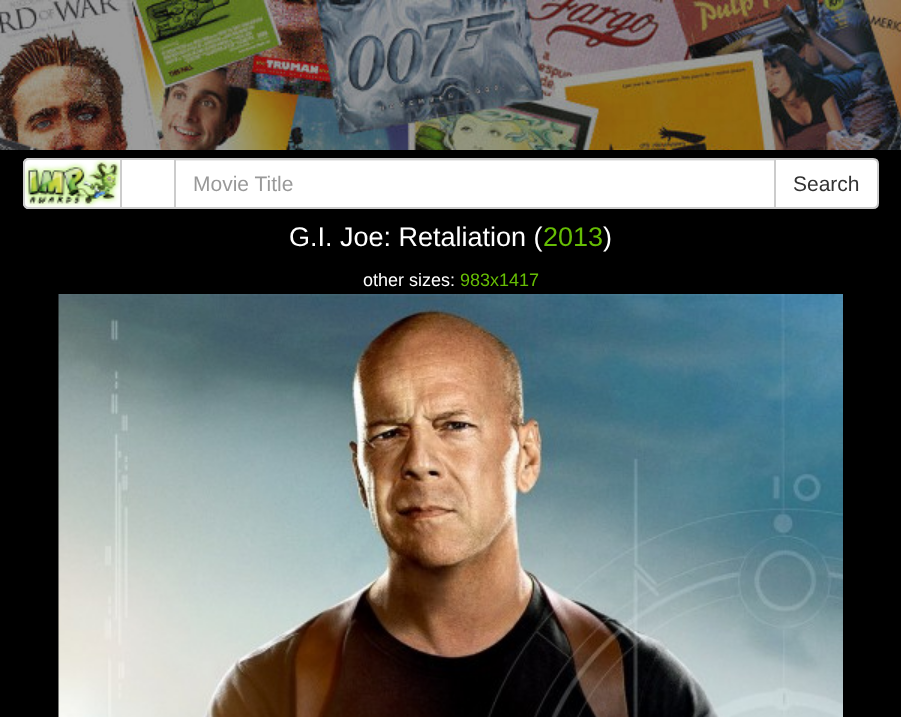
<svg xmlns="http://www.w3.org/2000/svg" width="901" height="717">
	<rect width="100%" height="100%" fill="#000000" />
	<image x="0" y="0" width="901" height="150" href="assets/img1.png" />
	<path d="M29 158H123V209H29C25.5 209 23 206.5 23 203V164C23 160.5 25.5 158 29 158Z" fill="#FFFFFF" />
	<image x="25" y="160" width="95" height="47" href="assets/img2.png" />
	<path d="M29 159H122V208H29C26 208 24 206 24 203V164C24 161 26 159 29 159Z" fill="none" stroke="#CCCCCC" stroke-width="2" />
	<rect x="121" y="159" width="54" height="49" fill="#FFFFFF" stroke="#CCCCCC" stroke-width="2" />
	<rect x="176" y="161" width="598" height="46" fill="#FFFFFF" />
	<rect x="176" y="160" width="598" height="1" fill="#ECECEC" />
	<rect x="175" y="159" width="600" height="49" fill="none" stroke="#CCCCCC" stroke-width="2" />
	<text x="193" y="191" font-family="Liberation Sans" font-size="21" fill="#999999">Movie Title</text>
	<path d="M775 159H873C876 159 878 161 878 164V203C878 206 876 208 873 208H775Z" fill="#FFFFFF" stroke="#CCCCCC" stroke-width="2" />
	<text x="793" y="191" font-family="Liberation Sans" font-size="21" fill="#333333">Search</text>
	<text x="289" y="246" font-family="Liberation Sans" font-size="27" fill="#FFFFFF">G.I. Joe: Retaliation (</text>
	<text x="543" y="246" font-family="Liberation Sans" font-size="27" fill="#66BD04">2013</text>
	<text x="603" y="246" font-family="Liberation Sans" font-size="27" fill="#FFFFFF">)</text>
	<text x="363" y="286" font-family="Liberation Sans" font-size="18" fill="#FFFFFF">other sizes:</text>
	<text x="460" y="286" font-family="Liberation Sans" font-size="18" fill="#66BD04">983x1417</text>
	<image x="58" y="294" width="785" height="423" href="assets/img3.png" />
</svg>
